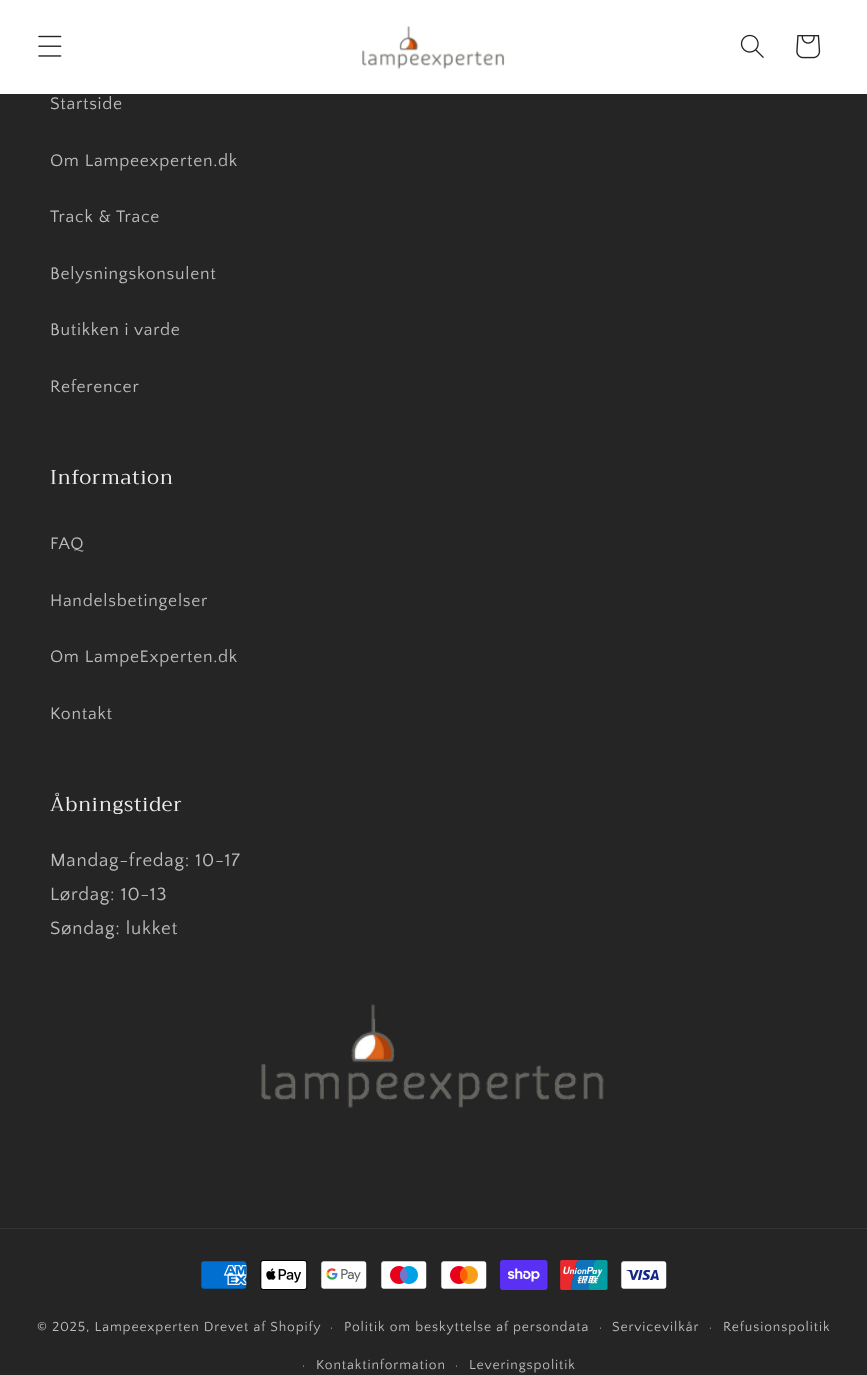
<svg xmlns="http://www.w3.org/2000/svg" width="867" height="1375">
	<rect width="100%" height="100%" fill="#252525" />
	<rect x="0" y="0" width="867" height="94" fill="#FFFFFF" />
	<image x="38" y="35" width="24" height="22" href="assets/img1.png" />
	<image x="362" y="26" width="143" height="44" href="assets/img2.png" />
	<image x="740" y="34" width="24" height="24" href="assets/img3.png" />
	<image x="796" y="35" width="25" height="24" href="assets/img4.png" />
	<g font-family="Quattrocento Sans" font-size="17.5" letter-spacing="0.75" fill="#BDBABA">
		<text x="50" y="109">Startside</text>
		<text x="50" y="166">Om Lampeexperten.dk</text>
		<text x="50" y="222">Track &amp; Trace</text>
		<text x="50" y="279">Belysningskonsulent</text>
		<text x="50" y="335">Butikken i varde</text>
		<text x="50" y="392">Referencer</text>
	</g>
	<text x="50" y="484" font-family="Trirong" font-size="20" letter-spacing="0.75" fill="#EFECEC">Information</text>
	<g font-family="Quattrocento Sans" font-size="17.5" letter-spacing="0.75" fill="#BDBABA">
		<text x="50" y="549">FAQ</text>
		<text x="50" y="606">Handelsbetingelser</text>
		<text x="50" y="662">Om LampeExperten.dk</text>
		<text x="50" y="719">Kontakt</text>
	</g>
	<text x="50" y="811" font-family="Trirong" font-size="20" letter-spacing="0.75" fill="#EFECEC">Åbningstider</text>
	<g font-family="Quattrocento Sans" font-size="18.75" letter-spacing="0.75" fill="#BDBABA">
		<text x="50" y="866">Mandag-fredag: 10-17</text>
		<text x="50" y="900">Lørdag: 10-13</text>
		<text x="50" y="934">Søndag: lukket</text>
	</g>
	<image x="261" y="1004" width="343" height="104" href="assets/img5.png" />
	<rect x="0" y="1228" width="867" height="1" fill="#353535" />
	<image x="201" y="1261" width="46" height="28" href="assets/img6.png" />
	<image x="260" y="1260" width="48" height="30" href="assets/img7.png" />
	<image x="321" y="1261" width="46" height="28" href="assets/img8.png" />
	<image x="381" y="1261" width="46" height="28" href="assets/img9.png" />
	<image x="441" y="1261" width="46" height="28" href="assets/img10.png" />
	<image x="500" y="1260" width="48" height="30" href="assets/img11.png" />
	<image x="560" y="1260" width="48" height="30" href="assets/img12.png" />
	<image x="621" y="1261" width="46" height="28" href="assets/img13.png" />
	<text x="37" y="1331" font-family="Quattrocento Sans" font-size="13.75" letter-spacing="0.9" fill="#BDBABA">© 2025, Lampeexperten Drevet af Shopify</text>
	<text x="330" y="1331" font-family="Quattrocento Sans" font-size="12" letter-spacing="0.9" fill="#BDBABA">·</text>
	<text x="344" y="1331" font-family="Quattrocento Sans" font-size="13.75" letter-spacing="0.9" fill="#BDBABA">Politik om beskyttelse af persondata</text>
	<text x="599" y="1331" font-family="Quattrocento Sans" font-size="12" letter-spacing="0.9" fill="#BDBABA">·</text>
	<text x="612" y="1331" font-family="Quattrocento Sans" font-size="13.75" letter-spacing="0.9" fill="#BDBABA">Servicevilkår</text>
	<text x="709" y="1331" font-family="Quattrocento Sans" font-size="12" letter-spacing="0.9" fill="#BDBABA">·</text>
	<text x="723" y="1331" font-family="Quattrocento Sans" font-size="13.75" letter-spacing="0.9" fill="#BDBABA">Refusionspolitik</text>
	<text x="302" y="1369" font-family="Quattrocento Sans" font-size="12" letter-spacing="0.9" fill="#BDBABA">·</text>
	<text x="316" y="1369" font-family="Quattrocento Sans" font-size="13.75" letter-spacing="0.9" fill="#BDBABA">Kontaktinformation</text>
	<text x="455" y="1369" font-family="Quattrocento Sans" font-size="12" letter-spacing="0.9" fill="#BDBABA">·</text>
	<text x="469" y="1369" font-family="Quattrocento Sans" font-size="13.75" letter-spacing="0.9" fill="#BDBABA">Leveringspolitik</text>
</svg>
